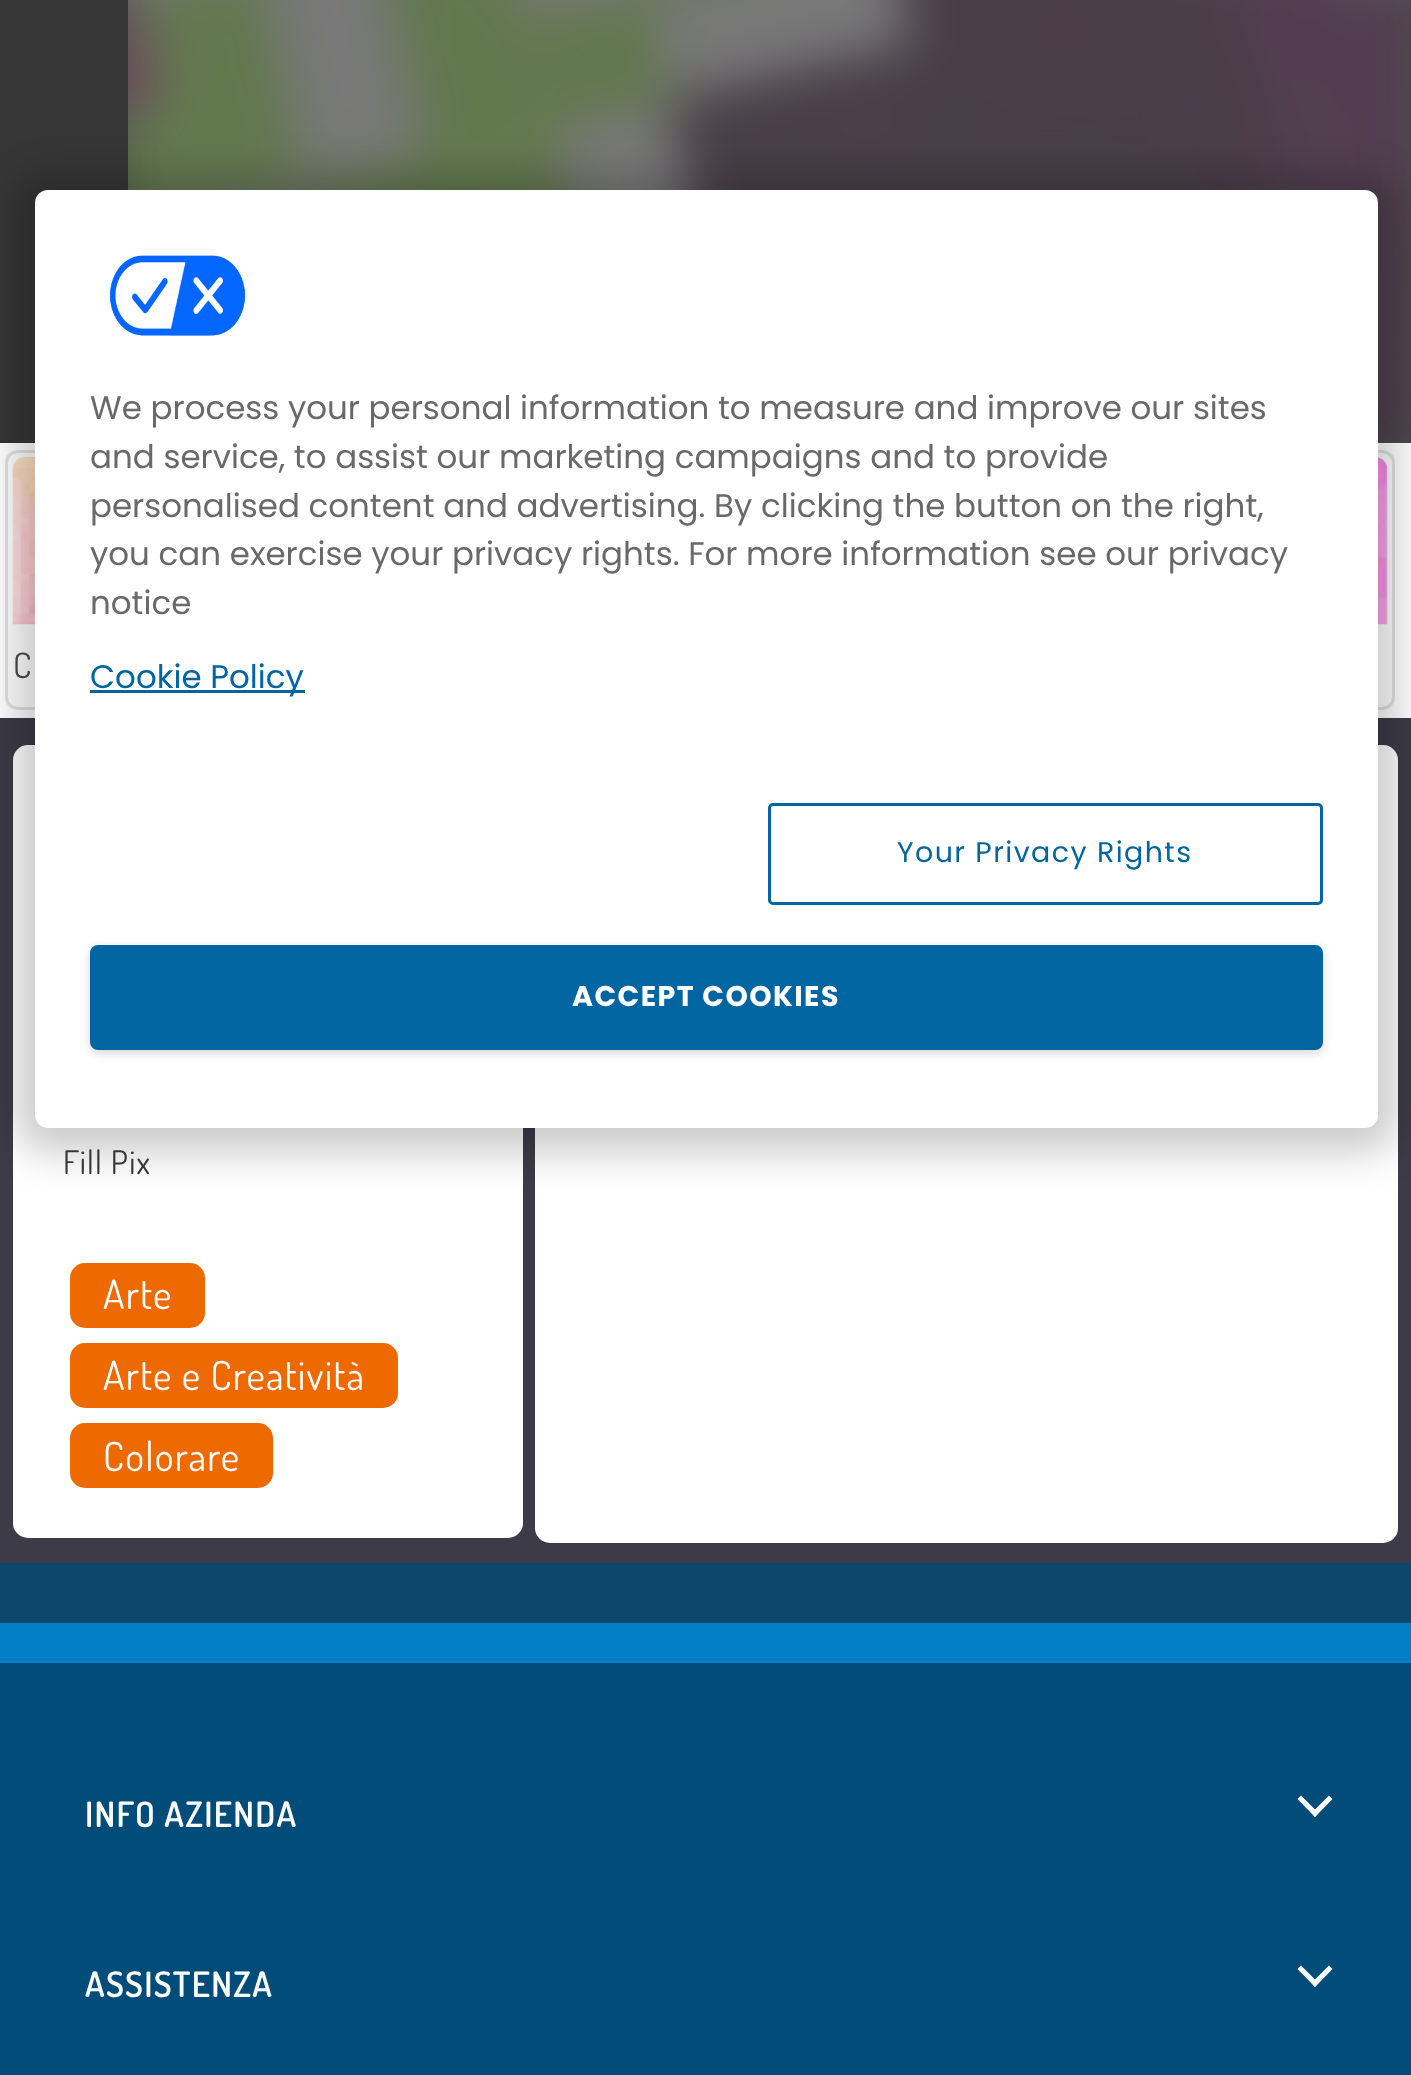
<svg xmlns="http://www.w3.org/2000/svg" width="1411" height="2075">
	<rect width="100%" height="100%" fill="#0C486C" />
	<rect x="0" y="718" width="1411" height="845" fill="#3C3B47" />
	<rect x="0" y="443" width="1411" height="275" fill="#FFFFFF" />
	<rect x="0" y="0" width="128" height="443" fill="#363636" />
	<rect x="128" y="0" width="1283" height="443" fill="#4C4C4C" />
	<image x="128" y="0" width="1283" height="442" href="assets/img2.png" />
	<rect x="6.5" y="451.5" width="292" height="257" rx="11.5" fill="none" stroke="#E2E2E2" stroke-width="3" />
	<image x="12" y="457" width="23" height="168" href="assets/img3.png" />
	<rect x="1101.5" y="451.5" width="292" height="257" rx="11.5" fill="none" stroke="#E2E2E2" stroke-width="3" />
	<image x="1378" y="457" width="10" height="168" href="assets/img4.png" />
	<rect x="13" y="745" width="510" height="793" rx="15" fill="#FFFFFF" />
	<rect x="535" y="745" width="863" height="798" rx="15" fill="#FFFFFF" />
	<rect x="15" y="175" width="1383" height="978" rx="33" fill="#000000" fill-opacity="0.2" filter="blur(19px)" />
	<rect x="35" y="190" width="1343" height="938" rx="13" fill="#FFFFFF" />
	<image x="109" y="255" width="137" height="81" href="assets/img1.png" />
	<g font-family="Poppins" font-size="32.5" fill="#696969">
		<text x="90" y="419">We process your personal information to measure and improve our sites</text>
		<text x="90" y="468">and service, to assist our marketing campaigns and to provide</text>
		<text x="90" y="517">personalised content and advertising. By clicking the button on the right,</text>
		<text x="90" y="565">you can exercise your privacy rights. For more information see our privacy</text>
		<text x="90" y="614">notice</text>
	</g>
	<rect x="90" y="690" width="215" height="3" fill="#0065A0" />
	<text x="90" y="688" font-family="Poppins" font-size="32.5" fill="#0065A0">Cookie Policy</text>
	<rect x="769.5" y="804.5" width="552" height="99" rx="3.5" fill="none" stroke="#0065A0" stroke-width="3" />
	<text x="897" y="862" font-family="Poppins" font-size="28.5" letter-spacing="1.4" fill="#0065A0">Your Privacy Rights</text>
	<rect x="90" y="948" width="1233" height="105" rx="8" fill="#000000" fill-opacity="0.16" filter="blur(5px)" />
	<rect x="91.5" y="946.5" width="1230" height="102" rx="6.5" fill="#0065A0" stroke="#0065A0" stroke-width="3" />
	<text x="572" y="1006" font-family="Poppins" font-size="28.5" font-weight="700" letter-spacing="1.4" fill="#FFFFFF">ACCEPT COOKIES</text>
	<text x="13" y="678" font-family="Dosis" font-size="35" letter-spacing="1.25" fill="#434343">C</text>
	<text x="63" y="1174" font-family="Dosis" font-size="32.5" letter-spacing="1.25" fill="#363636">Fill Pix</text>
	<rect x="70" y="1263" width="135" height="65" rx="15" fill="#EE6900" />
	<text x="103" y="1309" font-family="Dosis" font-size="40" letter-spacing="1.25" fill="#FFFFFF">Arte</text>
	<rect x="70" y="1343" width="328" height="65" rx="15" fill="#EE6900" />
	<text x="103" y="1390" font-family="Dosis" font-size="40" letter-spacing="1.25" fill="#FFFFFF">Arte e Creatività</text>
	<rect x="70" y="1423" width="203" height="65" rx="15" fill="#EE6900" />
	<text x="103" y="1471" font-family="Dosis" font-size="40" letter-spacing="1.25" fill="#FFFFFF">Colorare</text>
	<rect x="0" y="1663" width="1411" height="412" fill="#014C78" />
	<rect x="0" y="1623" width="1411" height="40" fill="#037FC8" />
	<text x="85" y="1827" font-family="Dosis" font-size="35" font-weight="600" letter-spacing="1.25" fill="#FFFFFF">INFO AZIENDA</text>
	<path d="M1329 1795.5L1332.5 1799L1315 1817L1311.5 1813Z" fill="#FFFFFF" />
	<path d="M1301 1795.5L1318.5 1813L1315 1817L1297.5 1799Z" fill="#FFFFFF" />
	<text x="85" y="1997" font-family="Dosis" font-size="35" font-weight="600" letter-spacing="1.25" fill="#FFFFFF">ASSISTENZA</text>
	<path d="M1329 1965.5L1332.5 1969L1315 1987L1311.5 1983Z" fill="#FFFFFF" />
	<path d="M1301 1965.5L1318.5 1983L1315 1987L1297.5 1969Z" fill="#FFFFFF" />
</svg>
